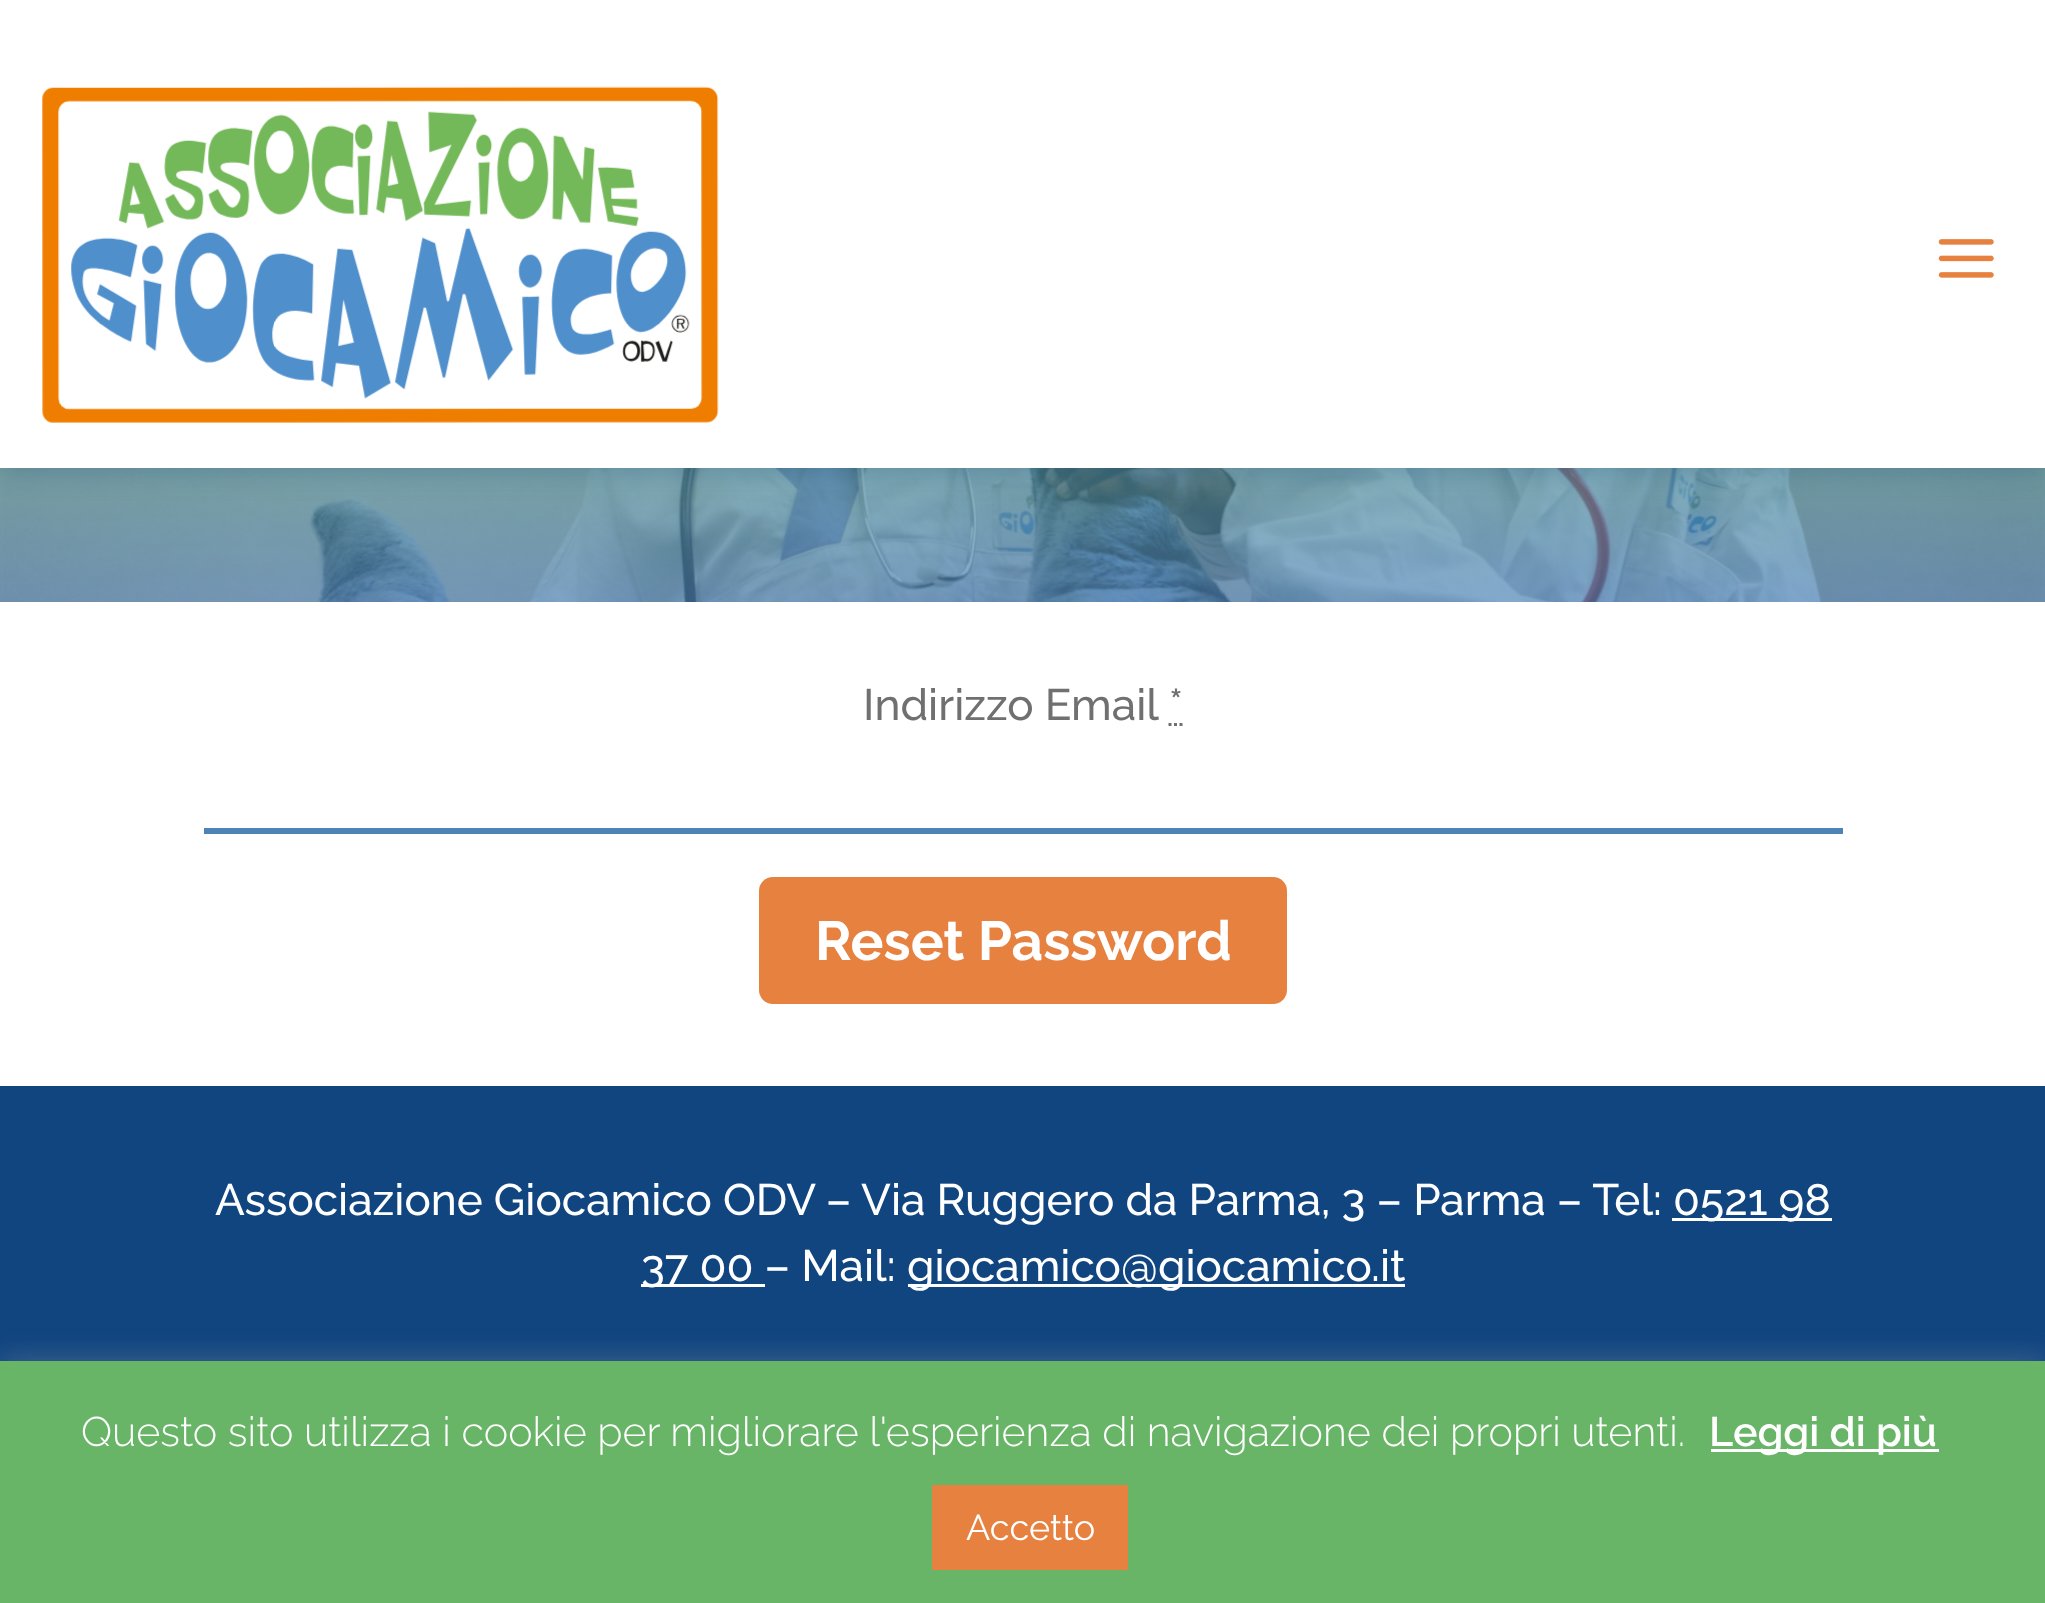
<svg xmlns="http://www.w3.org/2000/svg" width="2045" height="1603">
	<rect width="100%" height="100%" fill="#FFFFFF" />
	<image x="0" y="468" width="2045" height="134" href="assets/img3.png" />
	<rect x="0" y="3" width="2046" height="467" fill="#114580" fill-opacity="0.3" filter="blur(14px)" />
	<rect x="0" y="0" width="2045" height="468" fill="#FFFFFF" />
	<image x="42" y="86" width="677" height="337" href="assets/img1.png" />
	<image x="1938" y="239" width="56" height="39" href="assets/img2.png" />
	<text x="863" y="720" font-family="Raleway" font-size="44" font-weight="500" fill="#707070">Indirizzo Email *</text>
	<path d="M1168.5 724.5H1171.5M1174 724.5H1177M1179.5 724.5H1182.5" fill="none" stroke="#707070" stroke-width="2.8" />
	<rect x="204" y="828" width="1639" height="6" fill="#4E84B5" />
	<rect x="759" y="877" width="528" height="127" rx="14" fill="#E6813F" />
	<text x="815" y="960" font-family="Raleway" font-size="55" font-weight="700" fill="#FFFFFF">Reset Password</text>
	<rect x="0" y="1086" width="2045" height="275" fill="#114580" />
	<text x="215" y="1215" font-family="Raleway" font-size="44" font-weight="500" fill="#FFFFFF">Associazione Giocamico ODV – Via Ruggero da Parma, 3 – Parma – Tel:</text>
	<rect x="1672" y="1218" width="160" height="3" fill="#FFFFFF" />
	<text x="1673" y="1215" font-family="Raleway" font-size="44" font-weight="500" fill="#FFFFFF">0521 98</text>
	<rect x="641" y="1284" width="124" height="3" fill="#FFFFFF" />
	<text x="641" y="1281" font-family="Raleway" font-size="44" font-weight="500" fill="#FFFFFF">37 00 – Mail:</text>
	<rect x="908" y="1284" width="497" height="3" fill="#FFFFFF" />
	<text x="907" y="1281" font-family="Raleway" font-size="44" font-weight="500" fill="#FFFFFF">giocamico@giocamico.it</text>
	<rect x="0" y="1359" width="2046" height="242" fill="#ACABAB" fill-opacity="0.3" filter="blur(14px)" />
	<rect x="0" y="1361" width="2045" height="242" fill="#69B567" />
	<text x="81" y="1446" font-family="Raleway" font-size="41.25" font-weight="300" fill="#FFFFFF">Questo sito utilizza i cookie per migliorare l'esperienza di navigazione dei propri utenti.</text>
	<rect x="1711" y="1449" width="228" height="3" fill="#FFFFFF" />
	<text x="1709" y="1446" font-family="Raleway" font-size="41.25" font-weight="600" fill="#FFFFFF">Leggi di più</text>
	<rect x="932" y="1485" width="196" height="85" fill="#E6813F" />
	<text x="966" y="1540" font-family="Raleway" font-size="36" fill="#FFFFFF">Accetto</text>
</svg>
